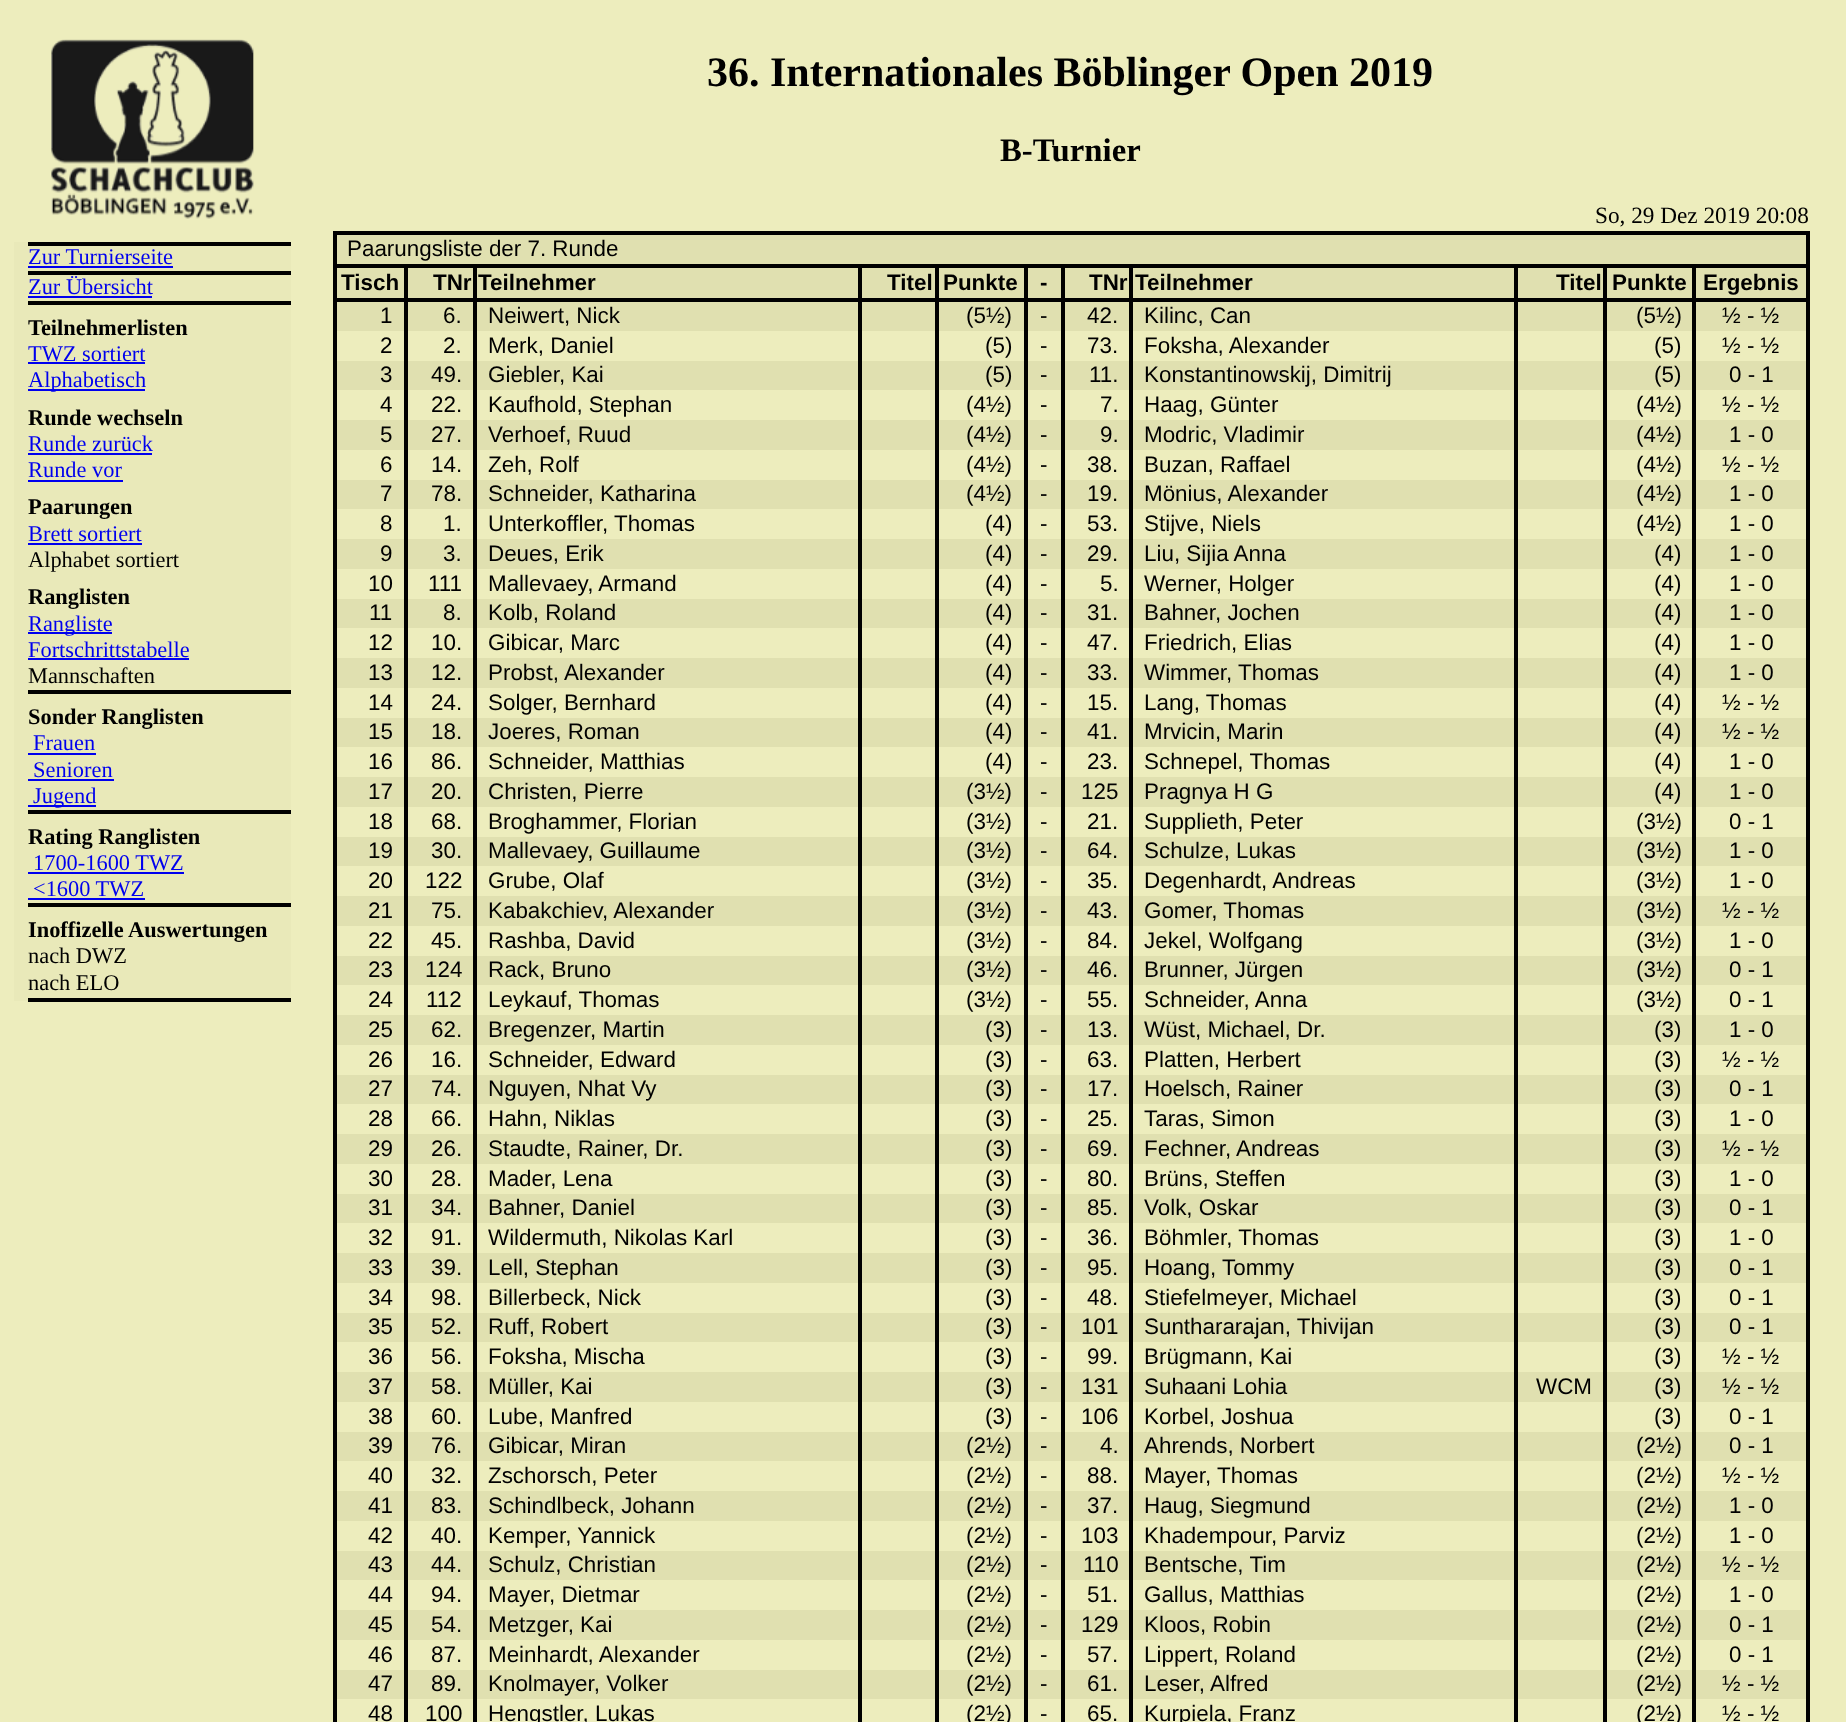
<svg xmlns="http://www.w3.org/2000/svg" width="1846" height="1722">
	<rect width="100%" height="100%" fill="#EDEDBD" />
	<rect x="14" y="242" width="277" height="759" fill="#E9E9B9" />
	<image x="51" y="39" width="203" height="180" href="assets/img1.png" />
	<rect x="28" y="242" width="263" height="4" fill="#000000" />
	<text x="28" y="264" font-family="Liberation Serif" font-size="22.4" fill="#0000EE">Zur Turnierseite</text>
	<rect x="28" y="266" width="145" height="2" fill="#0000EE" />
	<rect x="28" y="271" width="263" height="4" fill="#000000" />
	<text x="28" y="294" font-family="Liberation Serif" font-size="22.4" fill="#0000EE">Zur Übersicht</text>
	<rect x="28" y="296" width="124" height="2" fill="#0000EE" />
	<rect x="28" y="301" width="263" height="4" fill="#000000" />
	<text x="28" y="335" font-family="Liberation Serif" font-size="22.4" font-weight="700" fill="#000000">Teilnehmerlisten</text>
	<text x="28" y="361" font-family="Liberation Serif" font-size="22.4" fill="#0000EE">TWZ sortiert</text>
	<rect x="28" y="362" width="117" height="2" fill="#0000EE" />
	<rect x="28" y="389" width="117" height="2" fill="#0000EE" />
	<text x="28" y="387" font-family="Liberation Serif" font-size="22.4" fill="#0000EE">Alphabetisch</text>
	<text x="28" y="425" font-family="Liberation Serif" font-size="22.4" font-weight="700" fill="#000000">Runde wechseln</text>
	<text x="28" y="451" font-family="Liberation Serif" font-size="22.4" fill="#0000EE">Runde zurück</text>
	<rect x="28" y="453" width="124" height="2" fill="#0000EE" />
	<text x="28" y="477" font-family="Liberation Serif" font-size="22.4" fill="#0000EE">Runde vor</text>
	<rect x="28" y="480" width="95" height="2" fill="#0000EE" />
	<text x="28" y="514" font-family="Liberation Serif" font-size="22.4" font-weight="700" fill="#000000">Paarungen</text>
	<text x="28" y="541" font-family="Liberation Serif" font-size="22.4" fill="#0000EE">Brett sortiert</text>
	<rect x="28" y="543" width="114" height="2" fill="#0000EE" />
	<text x="28" y="567" font-family="Liberation Serif" font-size="22.4" fill="#000000">Alphabet sortiert</text>
	<text x="28" y="604" font-family="Liberation Serif" font-size="22.4" font-weight="700" fill="#000000">Ranglisten</text>
	<rect x="28" y="632" width="84" height="2" fill="#0000EE" />
	<g font-family="Liberation Serif" font-size="22.4" fill="#0000EE">
		<text x="28" y="631">Rangliste</text>
		<text x="28" y="657">Fortschrittstabelle</text>
	</g>
	<rect x="28" y="658" width="161" height="2" fill="#0000EE" />
	<text x="28" y="683" font-family="Liberation Serif" font-size="22.4" fill="#000000">Mannschaften</text>
	<rect x="28" y="690" width="263" height="4" fill="#000000" />
	<text x="28" y="724" font-family="Liberation Serif" font-size="22.4" font-weight="700" fill="#000000">Sonder Ranglisten</text>
	<text x="33" y="750" font-family="Liberation Serif" font-size="22.4" fill="#0000EE">Frauen</text>
	<rect x="28" y="753" width="68" height="2" fill="#0000EE" />
	<text x="33" y="777" font-family="Liberation Serif" font-size="22.4" fill="#0000EE">Senioren</text>
	<rect x="28" y="779" width="86" height="2" fill="#0000EE" />
	<rect x="28" y="805" width="68" height="2" fill="#0000EE" />
	<text x="33" y="803" font-family="Liberation Serif" font-size="22.4" fill="#0000EE">Jugend</text>
	<rect x="28" y="810" width="263" height="4" fill="#000000" />
	<text x="28" y="844" font-family="Liberation Serif" font-size="22.4" font-weight="700" fill="#000000">Rating Ranglisten</text>
	<text x="33" y="870" font-family="Liberation Serif" font-size="22.4" fill="#0000EE">1700-1600 TWZ</text>
	<rect x="28" y="872" width="156" height="2" fill="#0000EE" />
	<text x="33" y="896" font-family="Liberation Serif" font-size="22.4" fill="#0000EE">&lt;1600 TWZ</text>
	<rect x="28" y="898" width="117" height="2" fill="#0000EE" />
	<rect x="28" y="903" width="263" height="4" fill="#000000" />
	<text x="28" y="937" font-family="Liberation Serif" font-size="22.4" font-weight="700" fill="#000000">Inoffizelle Auswertungen</text>
	<g font-family="Liberation Serif" font-size="22.4" fill="#000000">
		<text x="28" y="963">nach DWZ</text>
		<text x="28" y="990">nach ELO</text>
	</g>
	<rect x="28" y="998" width="263" height="4" fill="#000000" />
	<text x="707" y="86" font-family="Liberation Serif" font-size="42" font-weight="700" fill="#000000">36. Internationales Böblinger Open 2019</text>
	<text x="1000" y="161" font-family="Liberation Serif" font-size="32.75" font-weight="700" fill="#000000">B-Turnier</text>
	<text x="1595" y="223" font-family="Liberation Serif" font-size="23.25" fill="#000000">So, 29 Dez 2019 20:08</text>
	<rect x="333" y="231" width="1477" height="4" fill="#000000" />
	<rect x="1806" y="231" width="4" height="1491" fill="#000000" />
	<rect x="333" y="231" width="4" height="1491" fill="#000000" />
	<rect x="337" y="235" width="1469" height="29" fill="#E0E0B0" />
	<text x="347" y="256" font-family="Liberation Sans" font-size="22.4" fill="#000000">Paarungsliste der 7. Runde</text>
	<rect x="337" y="268" width="67" height="30" fill="#E0E0B0" />
	<rect x="1692" y="264" width="118" height="4" fill="#000000" />
	<rect x="337" y="302" width="1469" height="29" fill="#E0E0B0" />
	<rect x="337" y="361" width="1469" height="29" fill="#E0E0B0" />
	<rect x="337" y="420" width="1469" height="30" fill="#E0E0B0" />
	<rect x="337" y="480" width="1469" height="29" fill="#E0E0B0" />
	<rect x="337" y="539" width="1469" height="30" fill="#E0E0B0" />
	<rect x="337" y="599" width="1469" height="29" fill="#E0E0B0" />
	<rect x="337" y="658" width="1469" height="30" fill="#E0E0B0" />
	<rect x="337" y="718" width="1469" height="29" fill="#E0E0B0" />
	<rect x="337" y="777" width="1469" height="30" fill="#E0E0B0" />
	<rect x="337" y="837" width="1469" height="29" fill="#E0E0B0" />
	<rect x="337" y="896" width="1469" height="30" fill="#E0E0B0" />
	<rect x="337" y="956" width="1469" height="29" fill="#E0E0B0" />
	<rect x="337" y="1015" width="1469" height="30" fill="#E0E0B0" />
	<rect x="337" y="1075" width="1469" height="29" fill="#E0E0B0" />
	<rect x="337" y="1134" width="1469" height="30" fill="#E0E0B0" />
	<rect x="337" y="1194" width="1469" height="29" fill="#E0E0B0" />
	<rect x="337" y="1253" width="1469" height="30" fill="#E0E0B0" />
	<rect x="337" y="1313" width="1469" height="29" fill="#E0E0B0" />
	<rect x="337" y="1372" width="1469" height="30" fill="#E0E0B0" />
	<rect x="337" y="1432" width="1469" height="29" fill="#E0E0B0" />
	<rect x="337" y="1491" width="1469" height="30" fill="#E0E0B0" />
	<rect x="337" y="1551" width="1469" height="29" fill="#E0E0B0" />
	<rect x="337" y="1610" width="1469" height="30" fill="#E0E0B0" />
	<rect x="337" y="1670" width="1469" height="29" fill="#E0E0B0" />
	<rect x="1692" y="298" width="4" height="1424" fill="#000000" />
	<rect x="1692" y="298" width="118" height="4" fill="#000000" />
	<rect x="1692" y="264" width="4" height="37" fill="#000000" />
	<rect x="1603" y="264" width="93" height="4" fill="#000000" />
	<rect x="1603" y="298" width="4" height="1424" fill="#000000" />
	<rect x="1603" y="298" width="93" height="4" fill="#000000" />
	<rect x="1603" y="264" width="4" height="37" fill="#000000" />
	<rect x="1514" y="264" width="93" height="4" fill="#000000" />
	<rect x="1514" y="298" width="4" height="1424" fill="#000000" />
	<rect x="1514" y="298" width="93" height="4" fill="#000000" />
	<rect x="1514" y="264" width="4" height="37" fill="#000000" />
	<rect x="1129" y="264" width="388" height="4" fill="#000000" />
	<rect x="1129" y="298" width="4" height="1424" fill="#000000" />
	<rect x="1129" y="298" width="388" height="4" fill="#000000" />
	<rect x="1129" y="264" width="4" height="37" fill="#000000" />
	<rect x="1061" y="264" width="71" height="4" fill="#000000" />
	<rect x="1061" y="298" width="4" height="1424" fill="#000000" />
	<rect x="1061" y="298" width="71" height="4" fill="#000000" />
	<rect x="1061" y="264" width="4" height="37" fill="#000000" />
	<rect x="1024" y="264" width="40" height="4" fill="#000000" />
	<rect x="1024" y="298" width="4" height="1424" fill="#000000" />
	<rect x="1024" y="298" width="40" height="4" fill="#000000" />
	<rect x="1024" y="264" width="4" height="37" fill="#000000" />
	<rect x="935" y="264" width="92" height="4" fill="#000000" />
	<rect x="935" y="298" width="4" height="1424" fill="#000000" />
	<rect x="935" y="298" width="92" height="4" fill="#000000" />
	<rect x="935" y="264" width="4" height="37" fill="#000000" />
	<rect x="858" y="264" width="80" height="4" fill="#000000" />
	<rect x="858" y="298" width="4" height="1424" fill="#000000" />
	<rect x="858" y="298" width="80" height="4" fill="#000000" />
	<rect x="858" y="264" width="4" height="37" fill="#000000" />
	<rect x="473" y="264" width="388" height="4" fill="#000000" />
	<rect x="473" y="298" width="4" height="1424" fill="#000000" />
	<rect x="473" y="298" width="388" height="4" fill="#000000" />
	<rect x="473" y="264" width="4" height="37" fill="#000000" />
	<rect x="404" y="264" width="72" height="4" fill="#000000" />
	<rect x="404" y="298" width="4" height="1424" fill="#000000" />
	<rect x="404" y="298" width="72" height="4" fill="#000000" />
	<rect x="404" y="264" width="4" height="37" fill="#000000" />
	<rect x="333" y="264" width="75" height="4" fill="#000000" />
	<rect x="333" y="298" width="75" height="4" fill="#000000" />
	<text x="341" y="290" font-family="Liberation Sans" font-size="22.4" font-weight="700" fill="#000000">Tisch</text>
	<rect x="408" y="268" width="65" height="30" fill="#E0E0B0" />
	<text x="433" y="290" font-family="Liberation Sans" font-size="22.4" font-weight="700" fill="#000000">TNr</text>
	<rect x="477" y="268" width="381" height="30" fill="#E0E0B0" />
	<text x="478" y="290" font-family="Liberation Sans" font-size="22.4" font-weight="700" fill="#000000">Teilnehmer</text>
	<rect x="862" y="268" width="73" height="30" fill="#E0E0B0" />
	<text x="887" y="290" font-family="Liberation Sans" font-size="22.4" font-weight="700" fill="#000000">Titel</text>
	<rect x="939" y="268" width="85" height="30" fill="#E0E0B0" />
	<text x="943" y="290" font-family="Liberation Sans" font-size="22.4" font-weight="700" fill="#000000">Punkte</text>
	<rect x="1028" y="268" width="33" height="30" fill="#E0E0B0" />
	<text x="1040" y="290" font-family="Liberation Sans" font-size="22.4" font-weight="700" fill="#000000">-</text>
	<rect x="1065" y="268" width="64" height="30" fill="#E0E0B0" />
	<text x="1089" y="290" font-family="Liberation Sans" font-size="22.4" font-weight="700" fill="#000000">TNr</text>
	<rect x="1133" y="268" width="381" height="30" fill="#E0E0B0" />
	<text x="1135" y="290" font-family="Liberation Sans" font-size="22.4" font-weight="700" fill="#000000">Teilnehmer</text>
	<rect x="1518" y="268" width="85" height="30" fill="#E0E0B0" />
	<text x="1556" y="290" font-family="Liberation Sans" font-size="22.4" font-weight="700" fill="#000000">Titel</text>
	<rect x="1607" y="268" width="85" height="30" fill="#E0E0B0" />
	<text x="1612" y="290" font-family="Liberation Sans" font-size="22.4" font-weight="700" fill="#000000">Punkte</text>
	<rect x="1696" y="268" width="110" height="30" fill="#E0E0B0" />
	<text x="1703" y="290" font-family="Liberation Sans" font-size="22.4" font-weight="700" fill="#000000">Ergebnis</text>
	<g font-family="Liberation Sans" font-size="22.4" fill="#000000">
		<text x="380" y="323">1</text>
		<text x="443" y="323">6.</text>
		<text x="488" y="323">Neiwert, Nick</text>
		<text x="966" y="323">(5½)</text>
		<text x="1040" y="323">-</text>
		<text x="1087" y="323">42.</text>
		<text x="1144" y="323">Kilinc, Can</text>
		<text x="1636" y="323">(5½)</text>
		<text x="1722" y="323">½ - ½</text>
		<text x="380" y="353">2</text>
		<text x="443" y="353">2.</text>
		<text x="488" y="353">Merk, Daniel</text>
		<text x="985" y="353">(5)</text>
		<text x="1040" y="353">-</text>
		<text x="1087" y="353">73.</text>
		<text x="1144" y="353">Foksha, Alexander</text>
		<text x="1654" y="353">(5)</text>
		<text x="1722" y="353">½ - ½</text>
		<text x="380" y="382">3</text>
		<text x="431" y="382">49.</text>
		<text x="488" y="382">Giebler, Kai</text>
		<text x="985" y="382">(5)</text>
		<text x="1040" y="382">-</text>
		<text x="1089" y="382">11.</text>
		<text x="1144" y="382">Konstantinowskij, Dimitrij</text>
		<text x="1654" y="382">(5)</text>
		<text x="1729" y="382">0 - 1</text>
		<text x="380" y="412">4</text>
		<text x="431" y="412">22.</text>
		<text x="488" y="412">Kaufhold, Stephan</text>
		<text x="966" y="412">(4½)</text>
		<text x="1040" y="412">-</text>
		<text x="1100" y="412">7.</text>
		<text x="1144" y="412">Haag, Günter</text>
		<text x="1636" y="412">(4½)</text>
		<text x="1722" y="412">½ - ½</text>
		<text x="380" y="442">5</text>
		<text x="431" y="442">27.</text>
		<text x="488" y="442">Verhoef, Ruud</text>
		<text x="966" y="442">(4½)</text>
		<text x="1040" y="442">-</text>
		<text x="1100" y="442">9.</text>
		<text x="1144" y="442">Modric, Vladimir</text>
		<text x="1636" y="442">(4½)</text>
		<text x="1729" y="442">1 - 0</text>
		<text x="380" y="472">6</text>
		<text x="431" y="472">14.</text>
		<text x="488" y="472">Zeh, Rolf</text>
		<text x="966" y="472">(4½)</text>
		<text x="1040" y="472">-</text>
		<text x="1087" y="472">38.</text>
		<text x="1144" y="472">Buzan, Raffael</text>
		<text x="1636" y="472">(4½)</text>
		<text x="1722" y="472">½ - ½</text>
		<text x="380" y="501">7</text>
		<text x="431" y="501">78.</text>
		<text x="488" y="501">Schneider, Katharina</text>
		<text x="966" y="501">(4½)</text>
		<text x="1040" y="501">-</text>
		<text x="1087" y="501">19.</text>
		<text x="1144" y="501">Mönius, Alexander</text>
		<text x="1636" y="501">(4½)</text>
		<text x="1729" y="501">1 - 0</text>
		<text x="380" y="531">8</text>
		<text x="443" y="531">1.</text>
		<text x="488" y="531">Unterkoffler, Thomas</text>
		<text x="985" y="531">(4)</text>
		<text x="1040" y="531">-</text>
		<text x="1087" y="531">53.</text>
		<text x="1144" y="531">Stijve, Niels</text>
		<text x="1636" y="531">(4½)</text>
		<text x="1729" y="531">1 - 0</text>
		<text x="380" y="561">9</text>
		<text x="443" y="561">3.</text>
		<text x="488" y="561">Deues, Erik</text>
		<text x="985" y="561">(4)</text>
		<text x="1040" y="561">-</text>
		<text x="1087" y="561">29.</text>
		<text x="1144" y="561">Liu, Sijia Anna</text>
		<text x="1654" y="561">(4)</text>
		<text x="1729" y="561">1 - 0</text>
		<text x="368" y="591">10</text>
		<text x="428" y="591">111</text>
		<text x="488" y="591">Mallevaey, Armand</text>
		<text x="985" y="591">(4)</text>
		<text x="1040" y="591">-</text>
		<text x="1100" y="591">5.</text>
		<text x="1144" y="591">Werner, Holger</text>
		<text x="1654" y="591">(4)</text>
		<text x="1729" y="591">1 - 0</text>
		<text x="369" y="620">11</text>
		<text x="443" y="620">8.</text>
		<text x="488" y="620">Kolb, Roland</text>
		<text x="985" y="620">(4)</text>
		<text x="1040" y="620">-</text>
		<text x="1087" y="620">31.</text>
		<text x="1144" y="620">Bahner, Jochen</text>
		<text x="1654" y="620">(4)</text>
		<text x="1729" y="620">1 - 0</text>
		<text x="368" y="650">12</text>
		<text x="431" y="650">10.</text>
		<text x="488" y="650">Gibicar, Marc</text>
		<text x="985" y="650">(4)</text>
		<text x="1040" y="650">-</text>
		<text x="1087" y="650">47.</text>
		<text x="1144" y="650">Friedrich, Elias</text>
		<text x="1654" y="650">(4)</text>
		<text x="1729" y="650">1 - 0</text>
		<text x="368" y="680">13</text>
		<text x="431" y="680">12.</text>
		<text x="488" y="680">Probst, Alexander</text>
		<text x="985" y="680">(4)</text>
		<text x="1040" y="680">-</text>
		<text x="1087" y="680">33.</text>
		<text x="1144" y="680">Wimmer, Thomas</text>
		<text x="1654" y="680">(4)</text>
		<text x="1729" y="680">1 - 0</text>
		<text x="368" y="710">14</text>
		<text x="431" y="710">24.</text>
		<text x="488" y="710">Solger, Bernhard</text>
		<text x="985" y="710">(4)</text>
		<text x="1040" y="710">-</text>
		<text x="1087" y="710">15.</text>
		<text x="1144" y="710">Lang, Thomas</text>
		<text x="1654" y="710">(4)</text>
		<text x="1722" y="710">½ - ½</text>
		<text x="368" y="739">15</text>
		<text x="431" y="739">18.</text>
		<text x="488" y="739">Joeres, Roman</text>
		<text x="985" y="739">(4)</text>
		<text x="1040" y="739">-</text>
		<text x="1087" y="739">41.</text>
		<text x="1144" y="739">Mrvicin, Marin</text>
		<text x="1654" y="739">(4)</text>
		<text x="1722" y="739">½ - ½</text>
		<text x="368" y="769">16</text>
		<text x="431" y="769">86.</text>
		<text x="488" y="769">Schneider, Matthias</text>
		<text x="985" y="769">(4)</text>
		<text x="1040" y="769">-</text>
		<text x="1087" y="769">23.</text>
		<text x="1144" y="769">Schnepel, Thomas</text>
		<text x="1654" y="769">(4)</text>
		<text x="1729" y="769">1 - 0</text>
		<text x="368" y="799">17</text>
		<text x="431" y="799">20.</text>
		<text x="488" y="799">Christen, Pierre</text>
		<text x="966" y="799">(3½)</text>
		<text x="1040" y="799">-</text>
		<text x="1081" y="799">125</text>
		<text x="1144" y="799">Pragnya H G</text>
		<text x="1654" y="799">(4)</text>
		<text x="1729" y="799">1 - 0</text>
		<text x="368" y="829">18</text>
		<text x="431" y="829">68.</text>
		<text x="488" y="829">Broghammer, Florian</text>
		<text x="966" y="829">(3½)</text>
		<text x="1040" y="829">-</text>
		<text x="1087" y="829">21.</text>
		<text x="1144" y="829">Supplieth, Peter</text>
		<text x="1636" y="829">(3½)</text>
		<text x="1729" y="829">0 - 1</text>
		<text x="368" y="858">19</text>
		<text x="431" y="858">30.</text>
		<text x="488" y="858">Mallevaey, Guillaume</text>
		<text x="966" y="858">(3½)</text>
		<text x="1040" y="858">-</text>
		<text x="1087" y="858">64.</text>
		<text x="1144" y="858">Schulze, Lukas</text>
		<text x="1636" y="858">(3½)</text>
		<text x="1729" y="858">1 - 0</text>
		<text x="368" y="888">20</text>
		<text x="425" y="888">122</text>
		<text x="488" y="888">Grube, Olaf</text>
		<text x="966" y="888">(3½)</text>
		<text x="1040" y="888">-</text>
		<text x="1087" y="888">35.</text>
		<text x="1144" y="888">Degenhardt, Andreas</text>
		<text x="1636" y="888">(3½)</text>
		<text x="1729" y="888">1 - 0</text>
		<text x="368" y="918">21</text>
		<text x="431" y="918">75.</text>
		<text x="488" y="918">Kabakchiev, Alexander</text>
		<text x="966" y="918">(3½)</text>
		<text x="1040" y="918">-</text>
		<text x="1087" y="918">43.</text>
		<text x="1144" y="918">Gomer, Thomas</text>
		<text x="1636" y="918">(3½)</text>
		<text x="1722" y="918">½ - ½</text>
		<text x="368" y="948">22</text>
		<text x="431" y="948">45.</text>
		<text x="488" y="948">Rashba, David</text>
		<text x="966" y="948">(3½)</text>
		<text x="1040" y="948">-</text>
		<text x="1087" y="948">84.</text>
		<text x="1144" y="948">Jekel, Wolfgang</text>
		<text x="1636" y="948">(3½)</text>
		<text x="1729" y="948">1 - 0</text>
		<text x="368" y="977">23</text>
		<text x="425" y="977">124</text>
		<text x="488" y="977">Rack, Bruno</text>
		<text x="966" y="977">(3½)</text>
		<text x="1040" y="977">-</text>
		<text x="1087" y="977">46.</text>
		<text x="1144" y="977">Brunner, Jürgen</text>
		<text x="1636" y="977">(3½)</text>
		<text x="1729" y="977">0 - 1</text>
		<text x="368" y="1007">24</text>
		<text x="426" y="1007">112</text>
		<text x="488" y="1007">Leykauf, Thomas</text>
		<text x="966" y="1007">(3½)</text>
		<text x="1040" y="1007">-</text>
		<text x="1087" y="1007">55.</text>
		<text x="1144" y="1007">Schneider, Anna</text>
		<text x="1636" y="1007">(3½)</text>
		<text x="1729" y="1007">0 - 1</text>
		<text x="368" y="1037">25</text>
		<text x="431" y="1037">62.</text>
		<text x="488" y="1037">Bregenzer, Martin</text>
		<text x="985" y="1037">(3)</text>
		<text x="1040" y="1037">-</text>
		<text x="1087" y="1037">13.</text>
		<text x="1144" y="1037">Wüst, Michael, Dr.</text>
		<text x="1654" y="1037">(3)</text>
		<text x="1729" y="1037">1 - 0</text>
		<text x="368" y="1067">26</text>
		<text x="431" y="1067">16.</text>
		<text x="488" y="1067">Schneider, Edward</text>
		<text x="985" y="1067">(3)</text>
		<text x="1040" y="1067">-</text>
		<text x="1087" y="1067">63.</text>
		<text x="1144" y="1067">Platten, Herbert</text>
		<text x="1654" y="1067">(3)</text>
		<text x="1722" y="1067">½ - ½</text>
		<text x="368" y="1096">27</text>
		<text x="431" y="1096">74.</text>
		<text x="488" y="1096">Nguyen, Nhat Vy</text>
		<text x="985" y="1096">(3)</text>
		<text x="1040" y="1096">-</text>
		<text x="1087" y="1096">17.</text>
		<text x="1144" y="1096">Hoelsch, Rainer</text>
		<text x="1654" y="1096">(3)</text>
		<text x="1729" y="1096">0 - 1</text>
		<text x="368" y="1126">28</text>
		<text x="431" y="1126">66.</text>
		<text x="488" y="1126">Hahn, Niklas</text>
		<text x="985" y="1126">(3)</text>
		<text x="1040" y="1126">-</text>
		<text x="1087" y="1126">25.</text>
		<text x="1144" y="1126">Taras, Simon</text>
		<text x="1654" y="1126">(3)</text>
		<text x="1729" y="1126">1 - 0</text>
		<text x="368" y="1156">29</text>
		<text x="431" y="1156">26.</text>
		<text x="488" y="1156">Staudte, Rainer, Dr.</text>
		<text x="985" y="1156">(3)</text>
		<text x="1040" y="1156">-</text>
		<text x="1087" y="1156">69.</text>
		<text x="1144" y="1156">Fechner, Andreas</text>
		<text x="1654" y="1156">(3)</text>
		<text x="1722" y="1156">½ - ½</text>
		<text x="368" y="1186">30</text>
		<text x="431" y="1186">28.</text>
		<text x="488" y="1186">Mader, Lena</text>
		<text x="985" y="1186">(3)</text>
		<text x="1040" y="1186">-</text>
		<text x="1087" y="1186">80.</text>
		<text x="1144" y="1186">Brüns, Steffen</text>
		<text x="1654" y="1186">(3)</text>
		<text x="1729" y="1186">1 - 0</text>
		<text x="368" y="1215">31</text>
		<text x="431" y="1215">34.</text>
		<text x="488" y="1215">Bahner, Daniel</text>
		<text x="985" y="1215">(3)</text>
		<text x="1040" y="1215">-</text>
		<text x="1087" y="1215">85.</text>
		<text x="1144" y="1215">Volk, Oskar</text>
		<text x="1654" y="1215">(3)</text>
		<text x="1729" y="1215">0 - 1</text>
		<text x="368" y="1245">32</text>
		<text x="431" y="1245">91.</text>
		<text x="488" y="1245">Wildermuth, Nikolas Karl</text>
		<text x="985" y="1245">(3)</text>
		<text x="1040" y="1245">-</text>
		<text x="1087" y="1245">36.</text>
		<text x="1144" y="1245">Böhmler, Thomas</text>
		<text x="1654" y="1245">(3)</text>
		<text x="1729" y="1245">1 - 0</text>
		<text x="368" y="1275">33</text>
		<text x="431" y="1275">39.</text>
		<text x="488" y="1275">Lell, Stephan</text>
		<text x="985" y="1275">(3)</text>
		<text x="1040" y="1275">-</text>
		<text x="1087" y="1275">95.</text>
		<text x="1144" y="1275">Hoang, Tommy</text>
		<text x="1654" y="1275">(3)</text>
		<text x="1729" y="1275">0 - 1</text>
		<text x="368" y="1305">34</text>
		<text x="431" y="1305">98.</text>
		<text x="488" y="1305">Billerbeck, Nick</text>
		<text x="985" y="1305">(3)</text>
		<text x="1040" y="1305">-</text>
		<text x="1087" y="1305">48.</text>
		<text x="1144" y="1305">Stiefelmeyer, Michael</text>
		<text x="1654" y="1305">(3)</text>
		<text x="1729" y="1305">0 - 1</text>
		<text x="368" y="1334">35</text>
		<text x="431" y="1334">52.</text>
		<text x="488" y="1334">Ruff, Robert</text>
		<text x="985" y="1334">(3)</text>
		<text x="1040" y="1334">-</text>
		<text x="1081" y="1334">101</text>
		<text x="1144" y="1334">Sunthararajan, Thivijan</text>
		<text x="1654" y="1334">(3)</text>
		<text x="1729" y="1334">0 - 1</text>
		<text x="368" y="1364">36</text>
		<text x="431" y="1364">56.</text>
		<text x="488" y="1364">Foksha, Mischa</text>
		<text x="985" y="1364">(3)</text>
		<text x="1040" y="1364">-</text>
		<text x="1087" y="1364">99.</text>
		<text x="1144" y="1364">Brügmann, Kai</text>
		<text x="1654" y="1364">(3)</text>
		<text x="1722" y="1364">½ - ½</text>
		<text x="368" y="1394">37</text>
		<text x="431" y="1394">58.</text>
		<text x="488" y="1394">Müller, Kai</text>
		<text x="985" y="1394">(3)</text>
		<text x="1040" y="1394">-</text>
		<text x="1081" y="1394">131</text>
		<text x="1144" y="1394">Suhaani Lohia</text>
		<text x="1536" y="1394">WCM</text>
		<text x="1654" y="1394">(3)</text>
		<text x="1722" y="1394">½ - ½</text>
		<text x="368" y="1424">38</text>
		<text x="431" y="1424">60.</text>
		<text x="488" y="1424">Lube, Manfred</text>
		<text x="985" y="1424">(3)</text>
		<text x="1040" y="1424">-</text>
		<text x="1081" y="1424">106</text>
		<text x="1144" y="1424">Korbel, Joshua</text>
		<text x="1654" y="1424">(3)</text>
		<text x="1729" y="1424">0 - 1</text>
		<text x="368" y="1453">39</text>
		<text x="431" y="1453">76.</text>
		<text x="488" y="1453">Gibicar, Miran</text>
		<text x="966" y="1453">(2½)</text>
		<text x="1040" y="1453">-</text>
		<text x="1100" y="1453">4.</text>
		<text x="1144" y="1453">Ahrends, Norbert</text>
		<text x="1636" y="1453">(2½)</text>
		<text x="1729" y="1453">0 - 1</text>
		<text x="368" y="1483">40</text>
		<text x="431" y="1483">32.</text>
		<text x="488" y="1483">Zschorsch, Peter</text>
		<text x="966" y="1483">(2½)</text>
		<text x="1040" y="1483">-</text>
		<text x="1087" y="1483">88.</text>
		<text x="1144" y="1483">Mayer, Thomas</text>
		<text x="1636" y="1483">(2½)</text>
		<text x="1722" y="1483">½ - ½</text>
		<text x="368" y="1513">41</text>
		<text x="431" y="1513">83.</text>
		<text x="488" y="1513">Schindlbeck, Johann</text>
		<text x="966" y="1513">(2½)</text>
		<text x="1040" y="1513">-</text>
		<text x="1087" y="1513">37.</text>
		<text x="1144" y="1513">Haug, Siegmund</text>
		<text x="1636" y="1513">(2½)</text>
		<text x="1729" y="1513">1 - 0</text>
		<text x="368" y="1543">42</text>
		<text x="431" y="1543">40.</text>
		<text x="488" y="1543">Kemper, Yannick</text>
		<text x="966" y="1543">(2½)</text>
		<text x="1040" y="1543">-</text>
		<text x="1081" y="1543">103</text>
		<text x="1144" y="1543">Khadempour, Parviz</text>
		<text x="1636" y="1543">(2½)</text>
		<text x="1729" y="1543">1 - 0</text>
		<text x="368" y="1572">43</text>
		<text x="431" y="1572">44.</text>
		<text x="488" y="1572">Schulz, Christian</text>
		<text x="966" y="1572">(2½)</text>
		<text x="1040" y="1572">-</text>
		<text x="1083" y="1572">110</text>
		<text x="1144" y="1572">Bentsche, Tim</text>
		<text x="1636" y="1572">(2½)</text>
		<text x="1722" y="1572">½ - ½</text>
		<text x="368" y="1602">44</text>
		<text x="431" y="1602">94.</text>
		<text x="488" y="1602">Mayer, Dietmar</text>
		<text x="966" y="1602">(2½)</text>
		<text x="1040" y="1602">-</text>
		<text x="1087" y="1602">51.</text>
		<text x="1144" y="1602">Gallus, Matthias</text>
		<text x="1636" y="1602">(2½)</text>
		<text x="1729" y="1602">1 - 0</text>
		<text x="368" y="1632">45</text>
		<text x="431" y="1632">54.</text>
		<text x="488" y="1632">Metzger, Kai</text>
		<text x="966" y="1632">(2½)</text>
		<text x="1040" y="1632">-</text>
		<text x="1081" y="1632">129</text>
		<text x="1144" y="1632">Kloos, Robin</text>
		<text x="1636" y="1632">(2½)</text>
		<text x="1729" y="1632">0 - 1</text>
		<text x="368" y="1662">46</text>
		<text x="431" y="1662">87.</text>
		<text x="488" y="1662">Meinhardt, Alexander</text>
		<text x="966" y="1662">(2½)</text>
		<text x="1040" y="1662">-</text>
		<text x="1087" y="1662">57.</text>
		<text x="1144" y="1662">Lippert, Roland</text>
		<text x="1636" y="1662">(2½)</text>
		<text x="1729" y="1662">0 - 1</text>
		<text x="368" y="1691">47</text>
		<text x="431" y="1691">89.</text>
		<text x="488" y="1691">Knolmayer, Volker</text>
		<text x="966" y="1691">(2½)</text>
		<text x="1040" y="1691">-</text>
		<text x="1087" y="1691">61.</text>
		<text x="1144" y="1691">Leser, Alfred</text>
		<text x="1636" y="1691">(2½)</text>
		<text x="1722" y="1691">½ - ½</text>
		<text x="368" y="1721">48</text>
		<text x="425" y="1721">100</text>
		<text x="488" y="1721">Hengstler, Lukas</text>
		<text x="966" y="1721">(2½)</text>
		<text x="1040" y="1721">-</text>
		<text x="1087" y="1721">65.</text>
		<text x="1144" y="1721">Kurpiela, Franz</text>
		<text x="1636" y="1721">(2½)</text>
		<text x="1722" y="1721">½ - ½</text>
	</g>
</svg>
